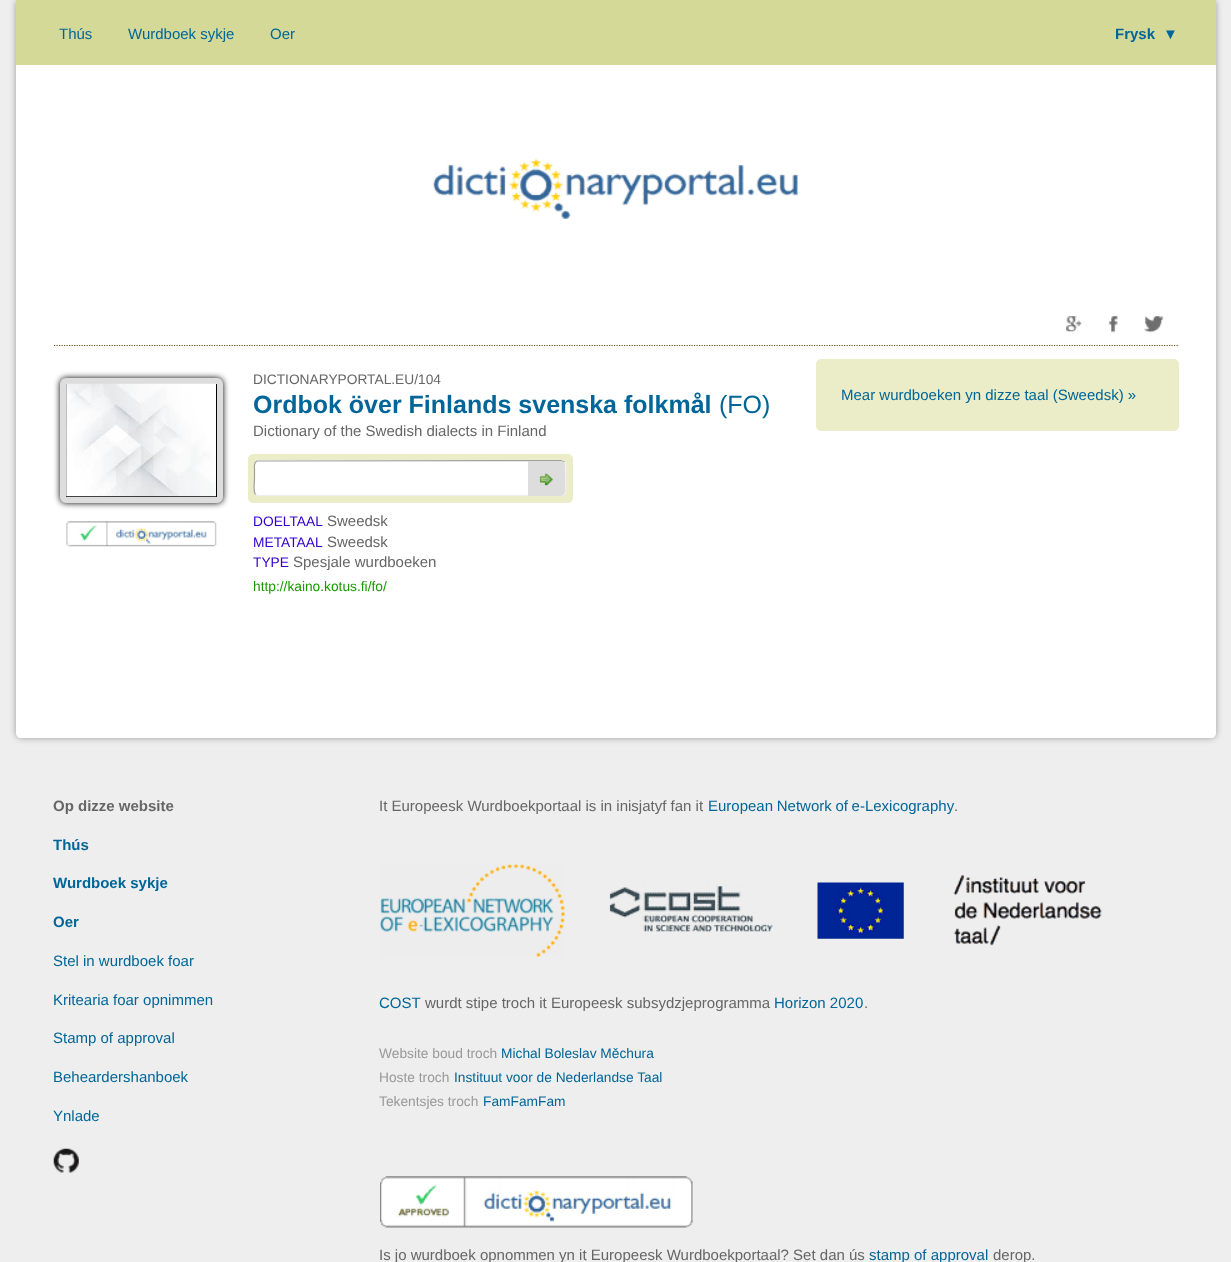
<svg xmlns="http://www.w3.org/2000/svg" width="1231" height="1262">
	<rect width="100%" height="100%" fill="#EEEEEE" />
	<rect x="16" y="0" width="1200" height="738" rx="5" fill="#999999" filter="blur(3px)" />
	<path d="M16 0H1216V733C1216 736 1214 738 1211 738H21C18 738 16 736 16 733Z" fill="#FFFFFF" />
	<rect x="16" y="0" width="1200" height="65" fill="#D5D997" />
	<g font-family="Liberation Sans" font-size="15" fill="#006699">
		<text x="59" y="39">Thús</text>
		<text x="128" y="39">Wurdboek sykje</text>
		<text x="270" y="39">Oer</text>
	</g>
	<g font-family="Liberation Sans" font-size="15" font-weight="700" fill="#006699">
		<text x="1115" y="39">Frysk</text>
		<text x="1163" y="39">▼</text>
	</g>
	<image x="433" y="158" width="365" height="61" href="assets/img1.png" />
	<path d="M54 345.5H1179" fill="none" stroke="#79531E" stroke-width="1.2" stroke-dasharray="1.25 1.25" />
	<image x="1066" y="316" width="16" height="16" href="assets/img2.png" />
	<image x="1108" y="316" width="10" height="17" href="assets/img3.png" />
	<image x="1143" y="316" width="21" height="17" href="assets/img4.png" />
	<rect x="60" y="378" width="163" height="125" rx="6" fill="#000000" filter="blur(3px)" />
	<rect x="63" y="381" width="157" height="119" rx="3" fill="none" stroke="#DDDDDD" stroke-width="6" />
	<image x="66" y="383" width="150" height="114" href="assets/img5.png" />
	<text x="253" y="384" font-family="Liberation Sans" font-size="13.75" fill="#666666">DICTIONARYPORTAL.EU/104</text>
	<text x="253" y="413" font-family="Liberation Sans" font-size="25" font-weight="700" fill="#006699">Ordbok över Finlands svenska folkmål</text>
	<text x="719" y="413" font-family="Liberation Sans" font-size="25" fill="#006699">(FO)</text>
	<text x="253" y="436" font-family="Liberation Sans" font-size="15" fill="#666666">Dictionary of the Swedish dialects in Finland</text>
	<rect x="248" y="454" width="325" height="49" rx="5" fill="#EAEDC8" />
	<rect x="254" y="460" width="312" height="36" rx="5" fill="#FFFFFF" />
	<path d="M564.5 462C567 464.5 565.5 475 565.5 478V487C565.5 490 566.5 494 563 495.5H259L255.5 494.5" fill="none" stroke="#EEEEEE" stroke-width="1.2" />
	<path d="M255.5 494.5C253 491.5 254.5 481.5 254.5 478V469.5C254.5 466.5 253.5 462.5 257 461L561 460.5L564.5 462" fill="none" stroke="#9F9F9F" stroke-width="1.2" />
	<path d="M528 461H560C563 461 565 463 565 466V491C565 494 563 496 560 496H528Z" fill="#DDDDDD" />
	<image x="539" y="473" width="14" height="13" href="assets/img6.png" />
	<image x="66" y="521" width="151" height="26" href="assets/img7.png" />
	<text x="253" y="526" font-family="Liberation Sans" font-size="13.75" fill="#3300CC">DOELTAAL</text>
	<text x="327" y="526" font-family="Liberation Sans" font-size="15" fill="#666666">Sweedsk</text>
	<text x="253" y="547" font-family="Liberation Sans" font-size="13.75" fill="#3300CC">METATAAL</text>
	<text x="327" y="547" font-family="Liberation Sans" font-size="15" fill="#666666">Sweedsk</text>
	<text x="253" y="567" font-family="Liberation Sans" font-size="13.75" fill="#3300CC">TYPE</text>
	<text x="293" y="567" font-family="Liberation Sans" font-size="15" fill="#666666">Spesjale wurdboeken</text>
	<text x="253" y="591" font-family="Liberation Sans" font-size="13.75" fill="#1A9900">http://kaino.kotus.fi/fo/</text>
	<rect x="816" y="359" width="363" height="72" rx="5" fill="#EAEDC8" />
	<text x="841" y="400" font-family="Liberation Sans" font-size="15" fill="#006699">Mear wurdboeken yn dizze taal (Sweedsk) »</text>
	<text x="53" y="811" font-family="Liberation Sans" font-size="15" font-weight="700" fill="#666666">Op dizze website</text>
	<g font-family="Liberation Sans" font-size="15" font-weight="700" fill="#006699">
		<text x="53" y="850">Thús</text>
		<text x="53" y="888">Wurdboek sykje</text>
		<text x="53" y="927">Oer</text>
	</g>
	<g font-family="Liberation Sans" font-size="15" fill="#006699">
		<text x="53" y="966">Stel in wurdboek foar</text>
		<text x="53" y="1005">Kritearia foar opnimmen</text>
		<text x="53" y="1043">Stamp of approval</text>
		<text x="53" y="1082">Beheardershanboek</text>
		<text x="53" y="1121">Ynlade</text>
	</g>
	<image x="53" y="1148" width="26" height="25" href="assets/img8.png" />
	<text x="379" y="811" font-family="Liberation Sans" font-size="15" fill="#666666">It Europeesk Wurdboekportaal is in inisjatyf fan it</text>
	<text x="708" y="811" word-spacing="-0.5" font-family="Liberation Sans" font-size="15" fill="#006699">European Network of e-Lexicography</text>
	<text x="954" y="811" font-family="Liberation Sans" font-size="15" fill="#666666">.</text>
	<image x="380" y="863" width="185" height="95" href="assets/img9.png" />
	<image x="609" y="882" width="164" height="50" href="assets/img10.png" />
	<image x="817" y="882" width="87" height="57" href="assets/img11.png" />
	<image x="953" y="874" width="149" height="72" href="assets/img12.png" />
	<text x="379" y="1008" font-family="Liberation Sans" font-size="15" fill="#006699">COST</text>
	<text x="425" y="1008" font-family="Liberation Sans" font-size="15" fill="#666666">wurdt stipe troch it Europeesk subsydzjeprogramma</text>
	<text x="774" y="1008" font-family="Liberation Sans" font-size="15" fill="#006699">Horizon 2020</text>
	<text x="864" y="1008" font-family="Liberation Sans" font-size="15" fill="#666666">.</text>
	<text x="379" y="1058" font-family="Liberation Sans" font-size="13.75" fill="#999999">Website boud troch</text>
	<text x="501" y="1058" font-family="Liberation Sans" font-size="13.75" fill="#006699">Michal Boleslav Měchura</text>
	<text x="379" y="1082" font-family="Liberation Sans" font-size="13.75" fill="#999999">Hoste troch</text>
	<text x="454" y="1082" font-family="Liberation Sans" font-size="13.75" fill="#006699">Instituut voor de Nederlandse Taal</text>
	<text x="379" y="1106" font-family="Liberation Sans" font-size="13.75" fill="#999999">Tekentsjes troch</text>
	<text x="483" y="1106" font-family="Liberation Sans" font-size="13.75" fill="#006699">FamFamFam</text>
	<image x="380" y="1176" width="313" height="52" href="assets/img13.png" />
	<text x="379" y="1260" font-family="Liberation Sans" font-size="15" fill="#666666">Is jo wurdboek opnommen yn it Europeesk Wurdboekportaal? Set dan ús</text>
	<text x="869" y="1260" font-family="Liberation Sans" font-size="15" fill="#006699">stamp of approval</text>
	<text x="993" y="1260" font-family="Liberation Sans" font-size="15" fill="#666666">derop.</text>
</svg>
